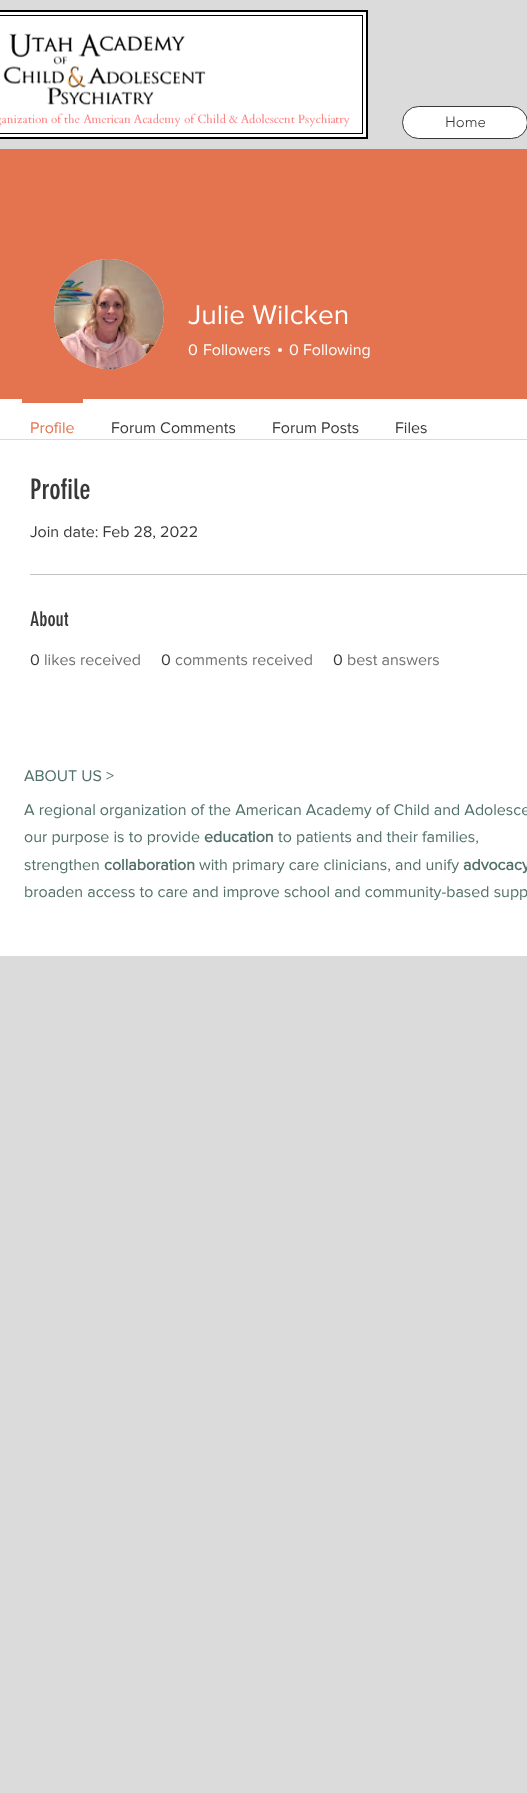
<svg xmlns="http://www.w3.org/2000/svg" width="527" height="1793">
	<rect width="100%" height="100%" fill="#DBDBDB" />
	<rect x="-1" y="11" width="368" height="127" fill="#FFFFFF" stroke="#000000" stroke-width="2" />
	<image x="0" y="33" width="350" height="94" href="assets/img1.png" />
	<rect x="-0.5" y="15.5" width="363" height="118" fill="none" stroke="#000000" />
	<rect x="402.5" y="106.5" width="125" height="32" rx="16" fill="#FFFFFF" stroke="#383838" />
	<text x="445" y="127" font-family="'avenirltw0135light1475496'" font-size="15" font-weight="300" fill="#383838">Home</text>
	<rect x="0" y="149" width="527" height="250" fill="#E3744F" />
	<circle cx="109" cy="314" r="55" fill="#D8D8D8" />
	<image x="54" y="259" width="110" height="110" href="assets/img2.png" />
	<text x="188" y="324" font-family="'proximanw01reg'" font-size="28" fill="#FFFFFF">Julie Wilcken</text>
	<g font-family="'proximanw01reg'" font-size="16" fill="#FFFFFF">
		<text x="188" y="355">0</text>
		<text x="203" y="355">Followers</text>
	</g>
	<circle cx="280" cy="350" r="2" fill="#FFFFFF" />
	<g font-family="'proximanw01reg'" font-size="16" fill="#FFFFFF">
		<text x="289" y="355">0</text>
		<text x="303" y="355">Following</text>
	</g>
	<rect x="0" y="399" width="527" height="40" fill="#FFFFFF" />
	<rect x="22" y="399" width="61" height="4" fill="#E3744F" />
	<text x="30" y="433" font-family="'proximanw01reg'" font-size="16" fill="#E3744F">Profile</text>
	<g font-family="'proximanw01reg'" font-size="16" fill="#383838">
		<text x="111" y="433">Forum Comments</text>
		<text x="272" y="433">Forum Posts</text>
		<text x="395" y="433">Files</text>
	</g>
	<rect x="0" y="440" width="527" height="516" fill="#FFFFFF" />
	<text x="30" y="499" font-family="'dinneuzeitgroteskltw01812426'" font-size="28" fill="#383838">Profile</text>
	<text x="30" y="537" font-family="'proximanw01reg'" font-size="16" fill="#383838">Join date: Feb 28, 2022</text>
	<rect x="30" y="574" width="497" height="1" fill="#C2C2C2" />
	<text x="30" y="626" font-family="'dinneuzeitgroteskltw01812426'" font-size="20" fill="#383838">About</text>
	<text x="30" y="665" font-family="'proximanw01reg'" font-size="16" fill="#383838">0</text>
	<text x="44" y="665" font-family="'proximanw01reg'" font-size="16" fill="#707070">likes received</text>
	<text x="161" y="665" font-family="'proximanw01reg'" font-size="16" fill="#383838">0</text>
	<text x="175" y="665" font-family="'proximanw01reg'" font-size="16" fill="#707070">comments received</text>
	<text x="333" y="665" font-family="'proximanw01reg'" font-size="16" fill="#383838">0</text>
	<text x="347" y="665" font-family="'proximanw01reg'" font-size="16" fill="#707070">best answers</text>
	<g font-family="'proximanw01reg'" font-size="16" fill="#52706A">
		<text x="24" y="781">ABOUT US &gt;</text>
		<text x="24" y="815">A regional organization of the American Academy of Child and Adolesce</text>
		<text x="24" y="842">our purpose is to provide</text>
	</g>
	<text x="204" y="842" font-family="'proximanw01reg'" font-size="16" font-weight="700" fill="#52706A">education</text>
	<g font-family="'proximanw01reg'" font-size="16" fill="#52706A">
		<text x="278" y="842">to patients and their families,</text>
		<text x="24" y="870">strengthen</text>
	</g>
	<text x="104" y="870" font-family="'proximanw01reg'" font-size="16" font-weight="700" fill="#52706A">collaboration</text>
	<text x="199" y="870" font-family="'proximanw01reg'" font-size="16" fill="#52706A">with primary care clinicians, and unify</text>
	<text x="463" y="870" font-family="'proximanw01reg'" font-size="16" font-weight="700" fill="#52706A">advocacy</text>
	<text x="24" y="897" font-family="'proximanw01reg'" font-size="16" fill="#52706A">broaden access to care and improve school and community-based supp</text>
</svg>
